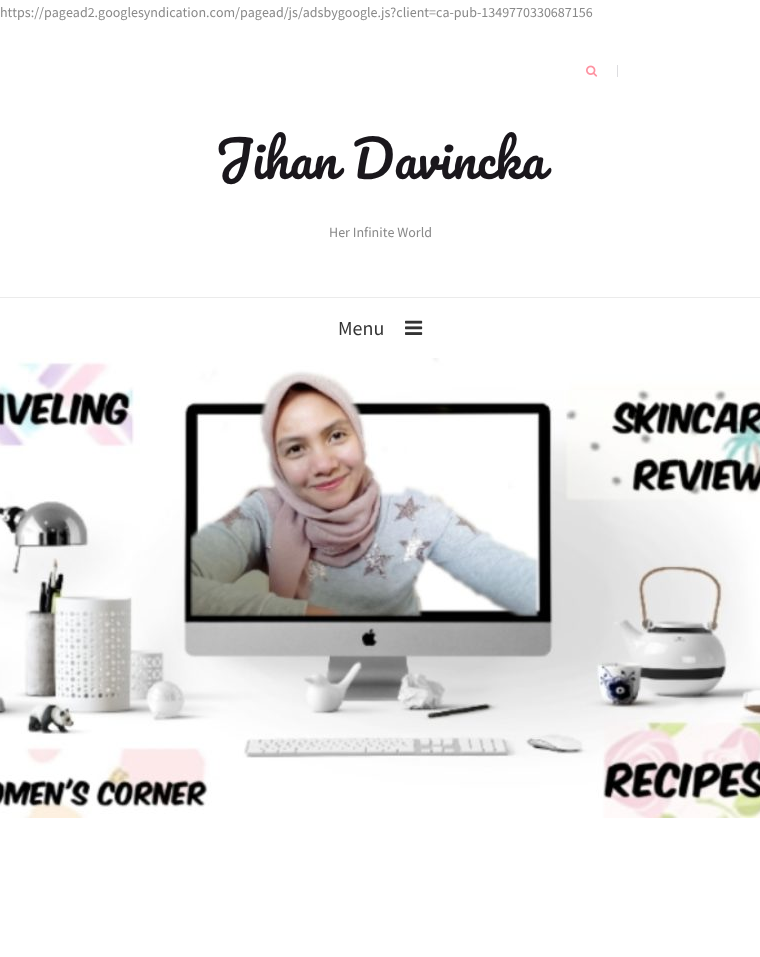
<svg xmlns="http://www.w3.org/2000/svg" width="760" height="957">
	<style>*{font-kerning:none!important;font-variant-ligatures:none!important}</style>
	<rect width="100%" height="100%" fill="#FFFFFF" />
	<text x="0" y="17" font-family="Source Sans Pro" font-size="14" fill="#898989">https://pagead2.googlesyndication.com/pagead/js/adsbygoogle.js?client=ca-pub-1349770330687156</text>
	<rect x="0" y="297" width="760" height="1" fill="#EBEBEB" />
	<rect x="617" y="65" width="1" height="12" fill="#DDDDE0" />
	<image x="586" y="65" width="12" height="12" href="assets/img1.png" />
	<text x="215" y="179" word-spacing="1" font-family="Pacifico" font-size="50" fill="#1A171C">Jihan Davincka</text>
	<text x="329" y="237" font-family="Source Sans Pro" font-size="14" fill="#898989">Her Infinite World</text>
	<text x="338" y="335" font-family="Source Sans Pro" font-size="20" fill="#333333">Menu</text>
	<image x="405" y="320" width="18" height="15" href="assets/img2.png" />
	<image x="0" y="358" width="760" height="460" href="assets/img3.png" />
</svg>
